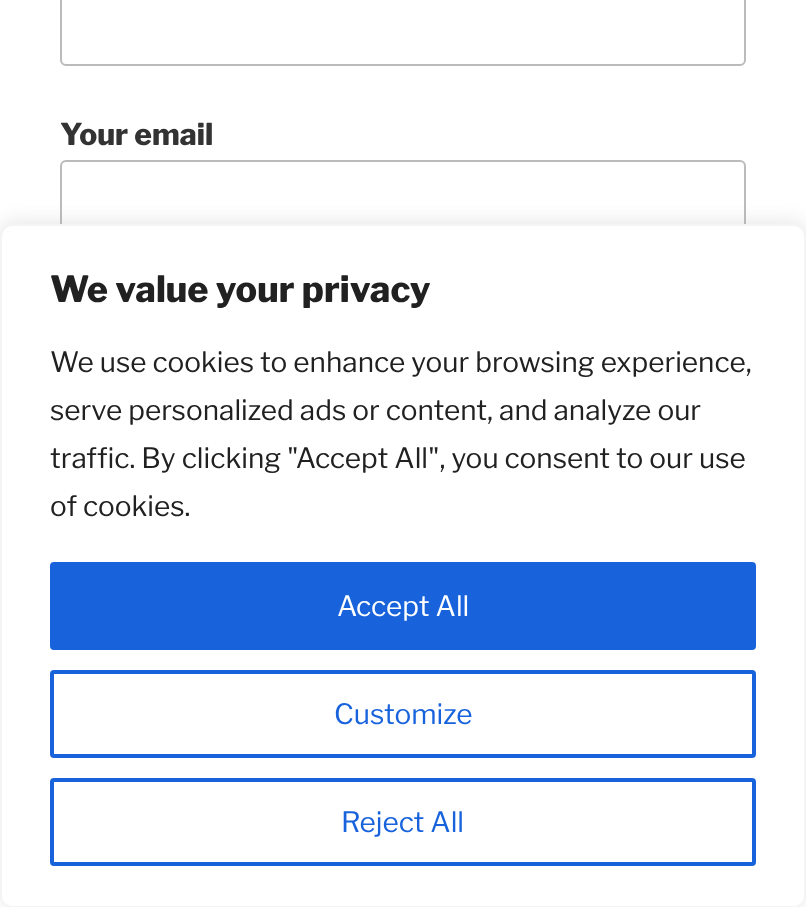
<svg xmlns="http://www.w3.org/2000/svg" width="806" height="907">
	<rect width="100%" height="100%" fill="#FFFFFF" />
	<rect x="61" y="-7" width="684" height="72" rx="5" fill="none" stroke="#BBBBBB" stroke-width="2" />
	<text x="60" y="145" font-family="Libre Franklin" font-size="30" font-weight="100" fill="#333333">Your email</text>
	<rect x="61" y="161" width="684" height="94" rx="5" fill="none" stroke="#BBBBBB" stroke-width="2" />
	<rect x="0" y="222" width="806" height="684" rx="12" fill="#ACABAB" fill-opacity="0.3" filter="blur(10px)" />
	<rect x="1" y="225" width="804" height="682" rx="11" fill="#FFFFFF" stroke="#F4F4F4" stroke-width="2" />
	<text x="50" y="302" font-family="Libre Franklin" font-size="36" font-weight="100" fill="#212121">We value your privacy</text>
	<g font-family="'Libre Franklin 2'" font-size="28" font-weight="100" fill="#212121">
		<text x="50" y="372">We use cookies to enhance your browsing experience,</text>
		<text x="50" y="420">serve personalized ads or content, and analyze our</text>
		<text x="50" y="468">traffic. By clicking "Accept All", you consent to our use</text>
		<text x="50" y="516">of cookies.</text>
	</g>
	<rect x="52" y="564" width="702" height="84" rx="2" fill="#1863DC" stroke="#1863DC" stroke-width="4" />
	<text x="337" y="616" font-family="'Libre Franklin 2'" font-size="28" font-weight="100" fill="#FFFFFF">Accept All</text>
	<rect x="52" y="672" width="702" height="84" rx="2" fill="none" stroke="#1863DC" stroke-width="4" />
	<text x="334" y="724" font-family="'Libre Franklin 2'" font-size="28" font-weight="100" fill="#1863DC">Customize</text>
	<rect x="52" y="780" width="702" height="84" rx="2" fill="none" stroke="#1863DC" stroke-width="4" />
	<text x="341" y="832" font-family="'Libre Franklin 2'" font-size="28" font-weight="100" fill="#1863DC">Reject All</text>
</svg>
